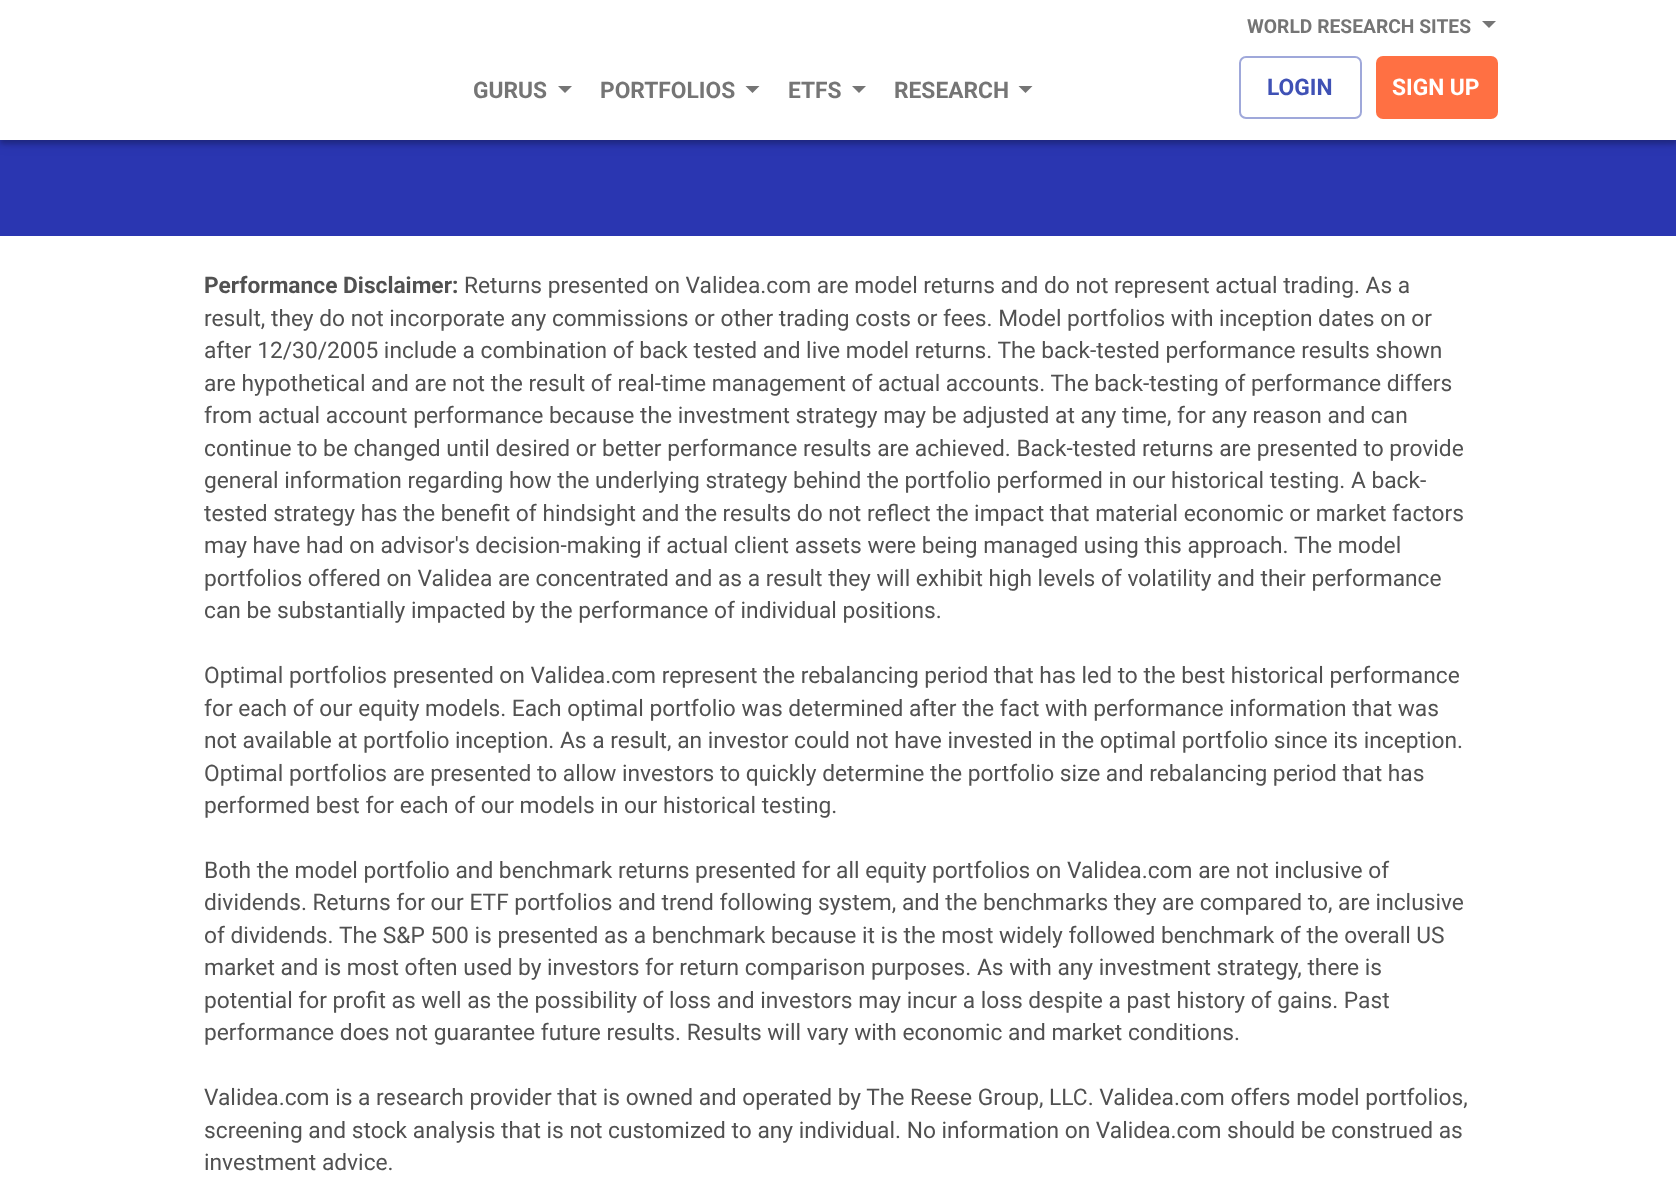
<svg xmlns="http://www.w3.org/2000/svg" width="1676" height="1179">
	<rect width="100%" height="100%" fill="#FFFFFF" />
	<rect x="0" y="140" width="1676" height="96" fill="#2A36B1" />
	<rect x="0" y="5" width="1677" height="140" fill="#000000" fill-opacity="0.05" filter="blur(7px)" />
	<rect x="0" y="4" width="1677" height="140" fill="#000000" fill-opacity="0.24" filter="blur(2.5px)" />
	<rect x="0" y="0" width="1676" height="140" fill="#FFFFFF" />
	<text x="1247" y="33" font-family="Roboto" font-size="19.25" font-weight="700" fill="#757575">WORLD RESEARCH SITES</text>
	<path d="M1482 21H1496L1489 28Z" fill="#757575" />
	<text x="473" y="98" font-family="Roboto" font-size="22.75" font-weight="700" fill="#757575">GURUS</text>
	<path d="M558 86H572L565 93Z" fill="#757575" />
	<text x="600" y="98" font-family="Roboto" font-size="22.75" font-weight="700" fill="#757575">PORTFOLIOS</text>
	<path d="M745.5 86H759.5L752.5 93Z" fill="#757575" />
	<text x="788" y="98" font-family="Roboto" font-size="22.75" font-weight="700" fill="#757575">ETFS</text>
	<path d="M852 86H866L859 93Z" fill="#757575" />
	<text x="894" y="98" font-family="Roboto" font-size="22.75" font-weight="700" fill="#757575">RESEARCH</text>
	<path d="M1018.5 86H1032.5L1025.5 93Z" fill="#757575" />
	<rect x="1240" y="57" width="121" height="61" rx="6" fill="none" stroke="#9FA8DA" stroke-width="2" />
	<text x="1267" y="95" font-family="Roboto" font-size="22.75" font-weight="700" fill="#3F51B5">LOGIN</text>
	<rect x="1376" y="56" width="122" height="63" rx="7" fill="#FF7043" />
	<text x="1392" y="95" font-family="Roboto" font-size="22.75" font-weight="700" fill="#FFFFFF">SIGN UP</text>
	<text x="204" y="293" font-family="Roboto" font-size="22.75" font-weight="700" fill="#515151">Performance Disclaimer:</text>
	<g font-family="Roboto" font-size="22.75" fill="#515151">
		<text x="464" y="293">Returns presented on Validea.com are model returns and do not represent actual trading. As a</text>
		<text x="204" y="326">result, they do not incorporate any commissions or other trading costs or fees. Model portfolios with inception dates on or</text>
		<text x="204" y="358">after 12/30/2005 include a combination of back tested and live model returns. The back-tested performance results shown</text>
		<text x="204" y="391">are hypothetical and are not the result of real-time management of actual accounts. The back-testing of performance differs</text>
		<text x="204" y="423">from actual account performance because the investment strategy may be adjusted at any time, for any reason and can</text>
		<text x="204" y="456">continue to be changed until desired or better performance results are achieved. Back-tested returns are presented to provide</text>
		<text x="204" y="488">general information regarding how the underlying strategy behind the portfolio performed in our historical testing. A back-</text>
		<text x="204" y="521">tested strategy has the benefit of hindsight and the results do not reflect the impact that material economic or market factors</text>
		<text x="204" y="553">may have had on advisor's decision-making if actual client assets were being managed using this approach.</text>
		<text x="1294" y="553">The model</text>
		<text x="204" y="586">portfolios offered on Validea are concentrated and as a result they will exhibit high levels of volatility and their performance</text>
		<text x="204" y="618">can be substantially impacted by the performance of individual positions.</text>
		<text x="204" y="683">Optimal portfolios presented on Validea.com represent the rebalancing period that has led to the best historical performance</text>
		<text x="204" y="716">for each of our equity models. Each optimal portfolio was determined after the fact with performance information that was</text>
		<text x="204" y="748">not available at portfolio inception. As a result, an investor could not have invested in the optimal portfolio since its inception.</text>
		<text x="204" y="781">Optimal portfolios are presented to allow investors to quickly determine the portfolio size and rebalancing period that has</text>
		<text x="204" y="813">performed best for each of our models in our historical testing.</text>
		<text x="204" y="878">Both the model portfolio and benchmark returns presented for all equity portfolios on Validea.com are not inclusive of</text>
		<text x="204" y="910">dividends. Returns for our ETF portfolios and trend following system, and the benchmarks they are compared to, are inclusive</text>
		<text x="204" y="943">of dividends.</text>
		<text x="339" y="943">The S&amp;P 500 is presented as a benchmark because it is the most widely followed benchmark of the overall US</text>
		<text x="204" y="975">market and is most often used by investors for return comparison purposes. As with any investment strategy, there is</text>
		<text x="204" y="1008">potential for profit as well as the possibility of loss and investors may incur a loss despite a past history of gains. Past</text>
		<text x="204" y="1040">performance does not guarantee future results. Results will vary with economic and market conditions.</text>
		<text x="204" y="1105">Validea.com is a research provider that is owned and operated by The Reese Group, LLC. Validea.com offers model portfolios,</text>
		<text x="204" y="1138">screening and stock analysis that is not customized to any individual. No information on Validea.com should be construed as</text>
		<text x="204" y="1170">investment advice.</text>
	</g>
</svg>
